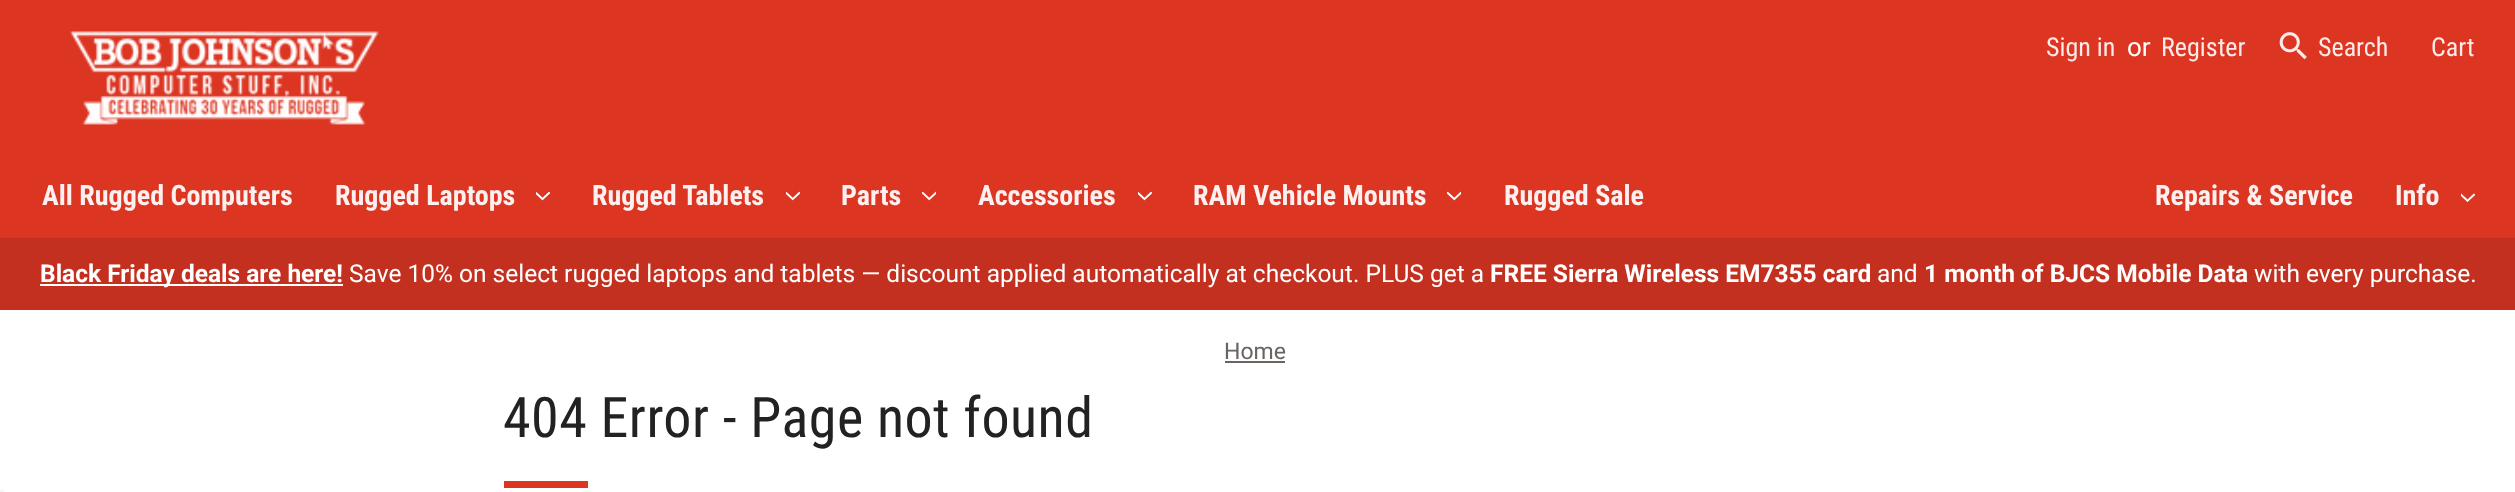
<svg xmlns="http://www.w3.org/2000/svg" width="2515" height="492">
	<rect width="100%" height="100%" fill="#FFFFFF" />
	<rect x="0" y="0" width="2515" height="238" fill="#DC3522" />
	<image x="69" y="31" width="310" height="94" href="assets/img1.png" />
	<text x="2046" y="56" font-family="Roboto Condensed" font-size="26" fill="#FCEBE9">Sign in</text>
	<text x="2127" y="56" font-family="Roboto" font-size="26" fill="#FFFFFF">or</text>
	<text x="2161" y="56" font-family="Roboto Condensed" font-size="26" fill="#FCEBE9">Register</text>
	<image x="2279" y="32" width="28" height="28" href="assets/img2.png" />
	<g font-family="Roboto Condensed" font-size="26" fill="#FCEBE9">
		<text x="2318" y="56">Search</text>
		<text x="2431" y="56">Cart</text>
	</g>
	<g font-family="Roboto Condensed" font-size="28" font-weight="700" fill="#FDF0EF">
		<text x="42" y="205">All Rugged Computers</text>
		<text x="335" y="205">Rugged Laptops</text>
	</g>
	<image x="536" y="191" width="14" height="10" href="assets/img3.png" />
	<text x="592" y="205" font-family="Roboto Condensed" font-size="28" font-weight="700" fill="#FDF0EF">Rugged Tablets</text>
	<image x="786" y="191" width="14" height="10" href="assets/img4.png" />
	<text x="841" y="205" font-family="Roboto Condensed" font-size="28" font-weight="700" fill="#FDF0EF">Parts</text>
	<image x="922" y="191" width="14" height="10" href="assets/img5.png" />
	<text x="978" y="205" font-family="Roboto Condensed" font-size="28" font-weight="700" fill="#FDF0EF">Accessories</text>
	<image x="1138" y="191" width="14" height="10" href="assets/img3.png" />
	<text x="1193" y="205" font-family="Roboto Condensed" font-size="28" font-weight="700" fill="#FDF0EF">RAM Vehicle Mounts</text>
	<image x="1447" y="191" width="14" height="10" href="assets/img5.png" />
	<g font-family="Roboto Condensed" font-size="28" font-weight="700" fill="#FDF0EF">
		<text x="1504" y="205">Rugged Sale</text>
		<text x="2155" y="205">Repairs &amp; Service</text>
		<text x="2395" y="205">Info</text>
	</g>
	<image x="2461" y="193" width="14" height="9" href="assets/img6.png" />
	<rect x="0" y="238" width="2515" height="72" fill="#C4301F" />
	<rect x="40" y="284" width="303" height="2" fill="#FFFFFF" />
	<text x="40" y="282" font-family="Roboto" font-size="24.5" font-weight="700" fill="#FFFFFF">Black Friday deals are here!</text>
	<text x="349" y="282" font-family="Roboto" font-size="24.5" fill="#FFFFFF">Save 10% on select rugged laptops and tablets — discount applied automatically at checkout. PLUS get a</text>
	<text x="1490" y="282" font-family="Roboto" font-size="24.5" font-weight="700" fill="#FFFFFF">FREE Sierra Wireless EM7355 card</text>
	<text x="1877" y="282" font-family="Roboto" font-size="24.5" fill="#FFFFFF">and</text>
	<text x="1924" y="282" font-family="Roboto" font-size="24.5" font-weight="700" fill="#FFFFFF">1 month of BJCS Mobile Data</text>
	<text x="2254" y="282" font-family="Roboto" font-size="24.5" fill="#FFFFFF">with every purchase.</text>
	<text x="1224" y="359" font-family="Roboto" font-size="23" fill="#696362">Home</text>
	<rect x="1225" y="361" width="60" height="2" fill="#696362" />
	<text x="503" y="437" font-family="Roboto Condensed" font-size="56" letter-spacing="0.45" fill="#222222">404 Error - Page not found</text>
	<rect x="504" y="481" width="84" height="7" fill="#DC3522" />
	<rect x="0" y="490" width="4" height="2" fill="#F5F5F5" />
</svg>
